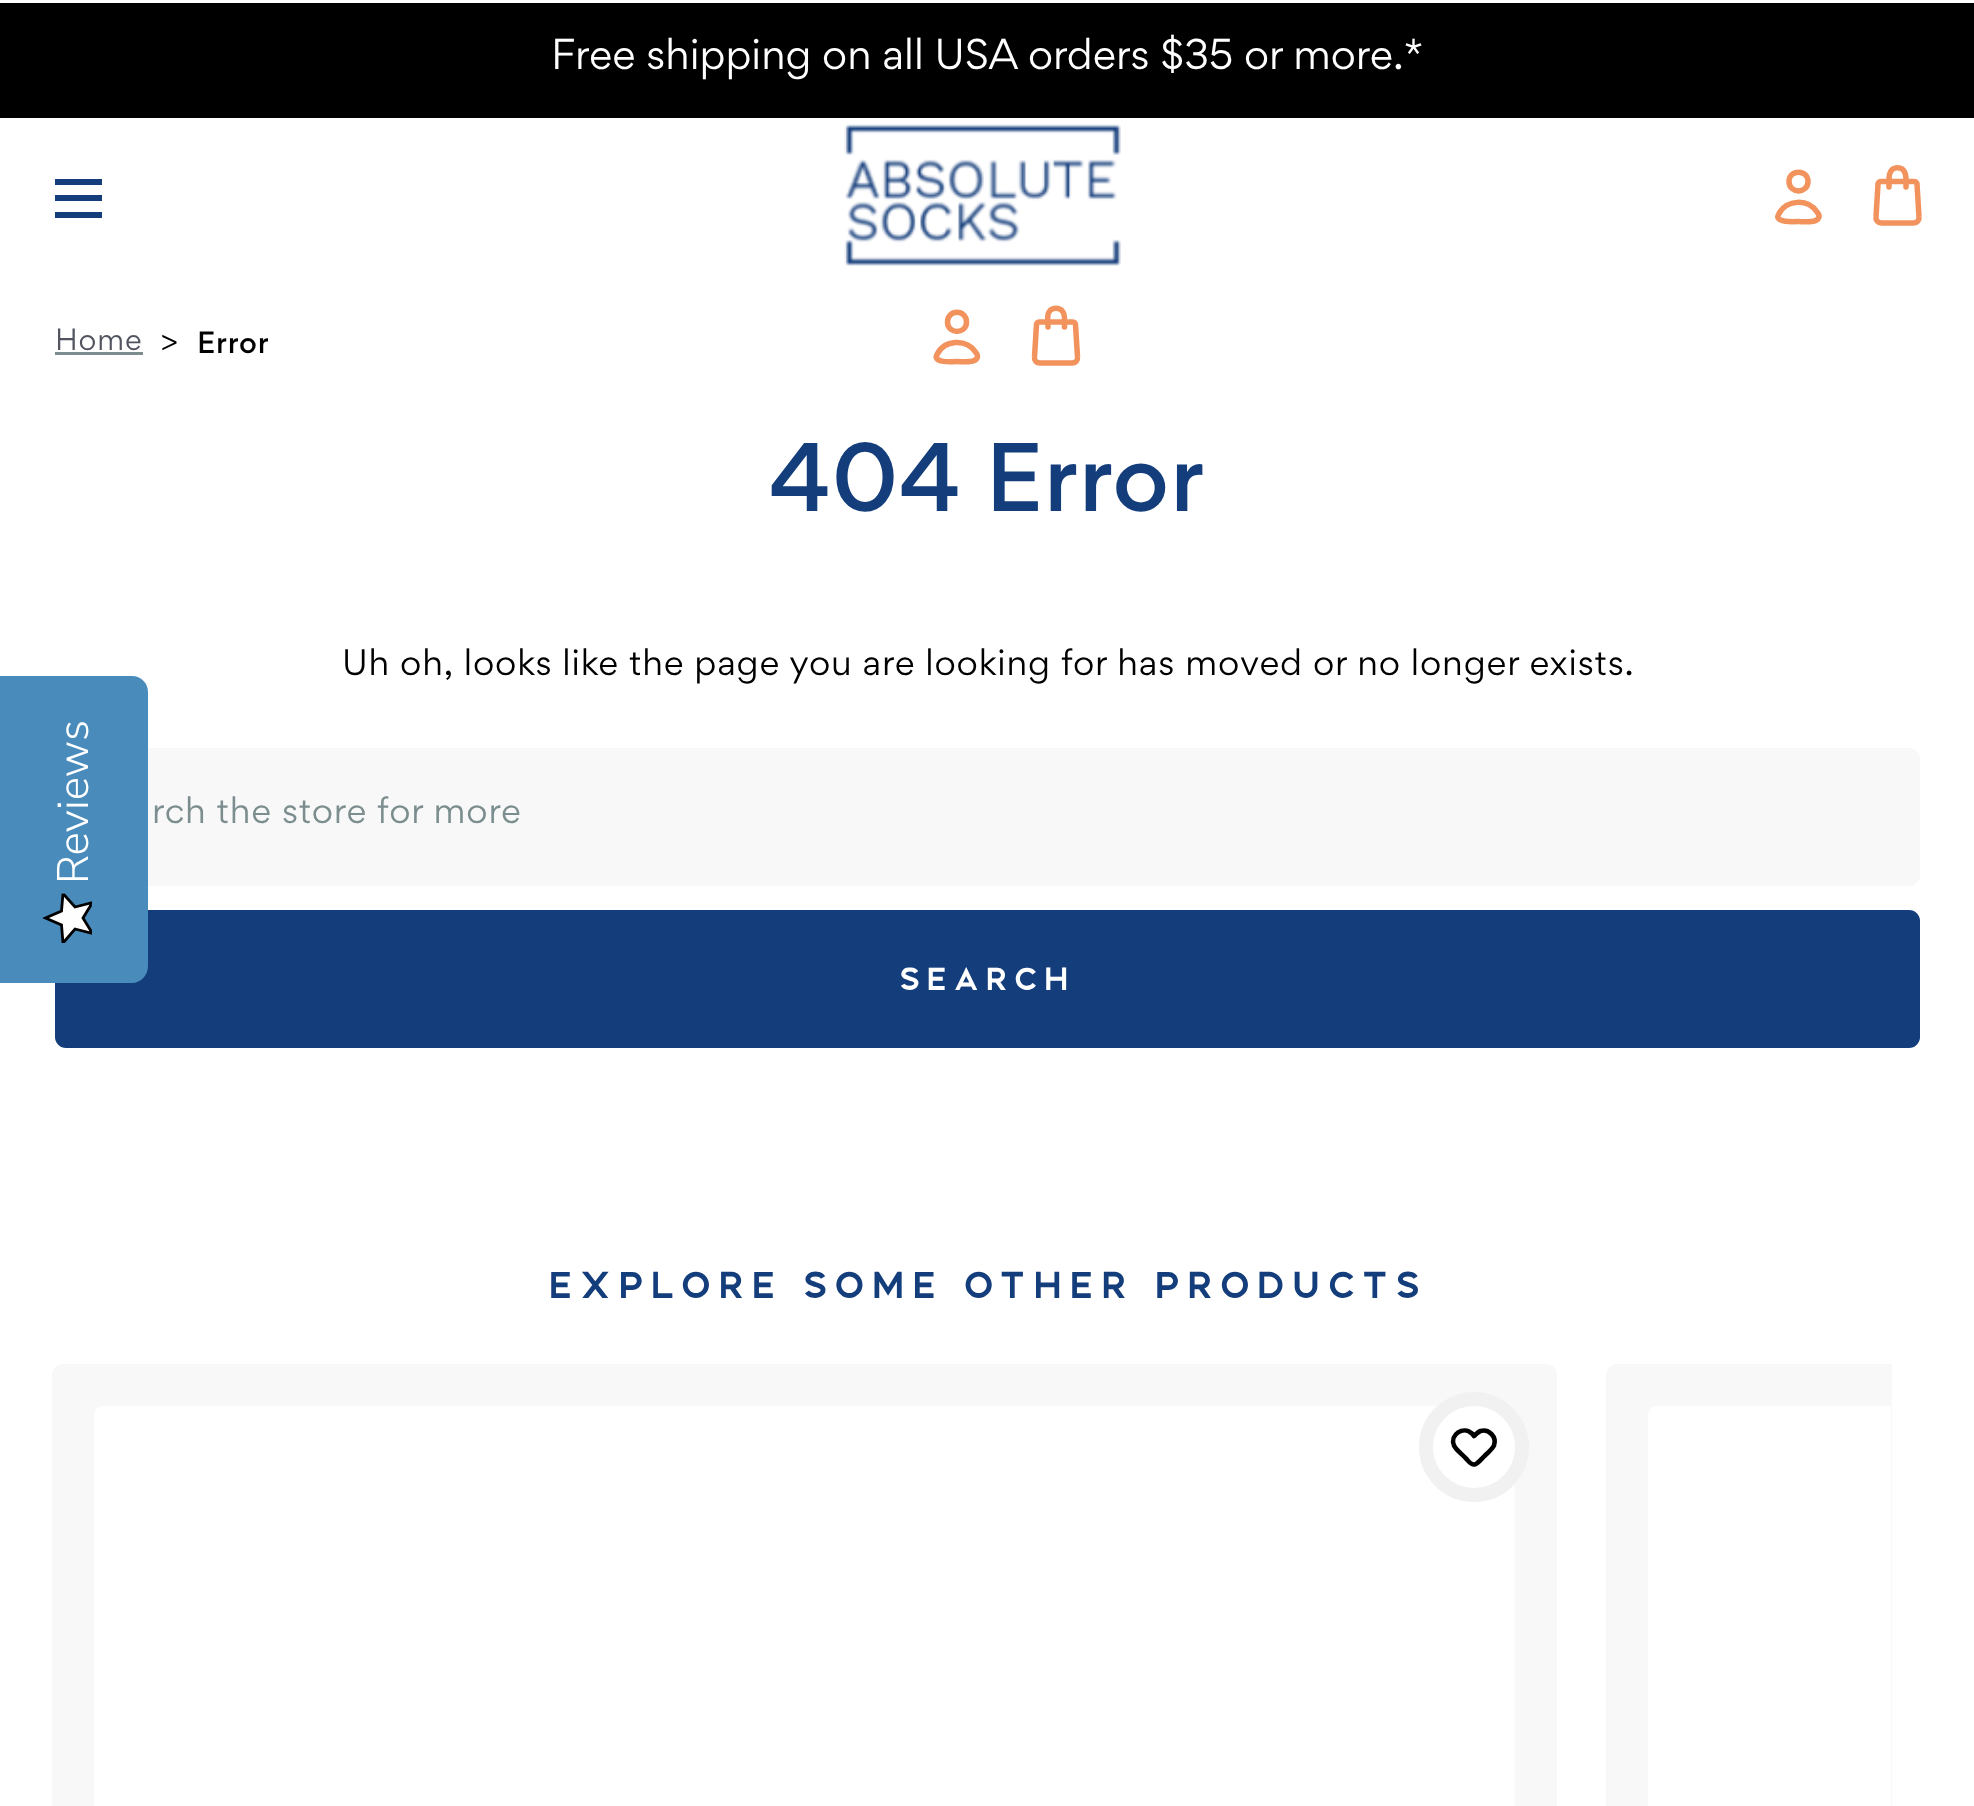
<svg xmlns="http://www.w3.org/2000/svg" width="1974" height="1806">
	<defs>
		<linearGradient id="g1" gradientUnits="userSpaceOnUse" x1="45" y1="943" x2="45" y2="893"><stop offset="1" stop-color="#FEFEFE" /><stop offset="1" stop-color="#EAEAEA" /></linearGradient>
		<clipPath id="clip1"><path d="M42.5 943V893.5H92V943Z" /></clipPath>
	</defs>
	<rect width="100%" height="100%" fill="#FFFFFF" />
	<rect x="0" y="3" width="1974" height="115" fill="#000000" />
	<text x="551" y="69" font-family="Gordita" font-size="38.5" fill="#FFFFFF">Free shipping on all USA orders $35 or more.*</text>
	<rect x="55" y="195" width="47" height="6" fill="#143D7B" />
	<rect x="55" y="179" width="47" height="6" fill="#143D7B" />
	<rect x="55" y="212" width="47" height="6" fill="#143D7B" />
	<image x="844" y="124" width="277" height="142" href="assets/img1.png" />
	<path d="M1808 181.5C1808 194 1789 194 1789 181.5C1789 169 1808 169 1808 181.5ZM1778.5 214.5C1786 199.5 1807.5 198 1817 212C1818.5 213.5 1820 215.5 1818.5 218C1816 223.5 1803 221.5 1798.5 221.5C1797.5 221.5 1773.5 223.5 1778.5 214.5Z" fill="none" stroke="#F2925D" stroke-width="5.5" stroke-linecap="round" stroke-linejoin="round" />
	<path d="M1914 181.5H1881C1879.5 181.5 1878 182.5 1878 184L1876 217C1875.5 220 1878 223 1881.5 223H1913.5C1917 223 1919.5 220 1919 217L1917 184C1917 182.5 1915.5 181.5 1914 181.5ZM1906 187C1906 183.5 1906.5 176 1905 173C1902.5 166 1892.5 166 1890 173C1888.5 176 1889 183.5 1889 187" fill="none" stroke="#F2925D" stroke-width="5.5" stroke-linecap="round" stroke-linejoin="round" />
	<path d="M966.5 322C966.5 334.5 947.5 334.5 947.5 322C947.5 309 966.5 309 966.5 322ZM937 354.5C944.5 339.5 966 338.5 975.5 352C977 354 978.5 356 977 358C974.5 363.5 961.5 361.5 957 361.5C956 361.5 932 364 937 354.5Z" fill="none" stroke="#F2925D" stroke-width="5.5" stroke-linecap="round" stroke-linejoin="round" />
	<path d="M1072.5 322H1039.5C1038 322 1036.5 323 1036.5 324.5L1034.5 357C1034 360.5 1036.5 363 1040 363H1072C1075.5 363 1078 360.5 1077.5 357L1075.5 324.5C1075.5 323 1074 322 1072.5 322ZM1064.5 327C1064.5 323.5 1065 316 1063.5 313C1061 306.5 1051 306.5 1048.5 313C1047 316 1048 323.5 1048 327" fill="none" stroke="#F2925D" stroke-width="5.5" stroke-linecap="round" stroke-linejoin="round" />
	<text x="55" y="350" font-family="Gordita" font-size="27.5" letter-spacing="0.82" fill="#525460">Home</text>
	<rect x="55" y="352" width="88" height="3" fill="#7B8D8E" />
	<text x="160" y="353" font-family="Gordita" font-size="27.5" letter-spacing="0.82" fill="#000000">&gt;</text>
	<text x="197" y="353" font-family="Gordita" font-size="27.5" font-weight="500" letter-spacing="0.82" fill="#000000">Error</text>
	<text x="769" y="511" font-family="Gordita" font-size="87" font-weight="500" letter-spacing="0.75" fill="#143D7B">404 Error</text>
	<text x="342" y="675" font-family="Gordita" font-size="32.75" letter-spacing="0.82" fill="#000000">Uh oh, looks like the page you are looking for has moved or no longer exists.</text>
	<rect x="55" y="748" width="1865" height="138" rx="11" fill="#F8F8F8" />
	<text x="152" y="823" font-family="Gordita" font-size="32.75" letter-spacing="0.82" fill="#7B8D8E">rch the store for more</text>
	<rect x="55" y="910" width="1865" height="138" rx="11" fill="#143D7B" />
	<text x="899" y="990" font-family="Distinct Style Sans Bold" font-size="28" font-weight="700" letter-spacing="5.5" fill="#FFFFFF">SEARCH</text>
	<text x="548" y="1298" font-family="Distinct Style Sans Bold" font-size="32.75" font-weight="700" letter-spacing="6.55" fill="#143D7B">EXPLORE SOME OTHER PRODUCTS</text>
	<rect x="52" y="1364" width="1505" height="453" rx="11" fill="#F8F8F8" />
	<image x="94" y="1406" width="1421" height="400" href="assets/img2.png" />
	<circle cx="1474" cy="1447" r="48" fill="#FFFFFF" stroke="#F1F1F1" stroke-width="14" />
	<path d="M1472 1433.5L1474 1436C1476 1434 1478 1432 1480.5 1431C1489 1428.5 1497 1437 1494 1445.5C1492 1449.5 1487.5 1453 1484.5 1456C1482 1458 1478 1464 1474.5 1464.5C1471 1465 1468 1460.5 1466 1458.5C1462.5 1454.5 1456 1450 1454 1445.5C1449.5 1434.5 1463.5 1425.5 1472 1433.5Z" fill="none" stroke="#000000" stroke-width="4.6" stroke-linecap="round" stroke-linejoin="round" />
	<path d="M1617 1364H1892V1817H1617C1611 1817 1606 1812 1606 1806V1375C1606 1369 1611 1364 1617 1364Z" fill="#F8F8F8" />
	<image x="1648" y="1406" width="243" height="400" href="assets/img3.png" />
	<path d="M0 983V676H132C141 676 148 683 148 692V966C148 975 141 983 132 983Z" fill="#498CBC" />
	<text x="88" y="884" transform="rotate(-90 88 884)" font-family="Nunito Sans" font-size="44" font-weight="300" fill="#FFFFFF">Reviews</text>
	<path d="M83 918L92 903L75 907L63 893L62 911L45 918L62 925L63 943L75 929L92 933Z" fill="url(#g1)" />
	<g clip-path="url(#clip1)">
		<path d="M83 918L92.5 902.5L75 907L63 893.5L61.5 911L45.5 918L61.5 925L63 943L75 929L92.5 933.5Z" fill="none" stroke="#000000" stroke-width="2.8" />
	</g>
</svg>
